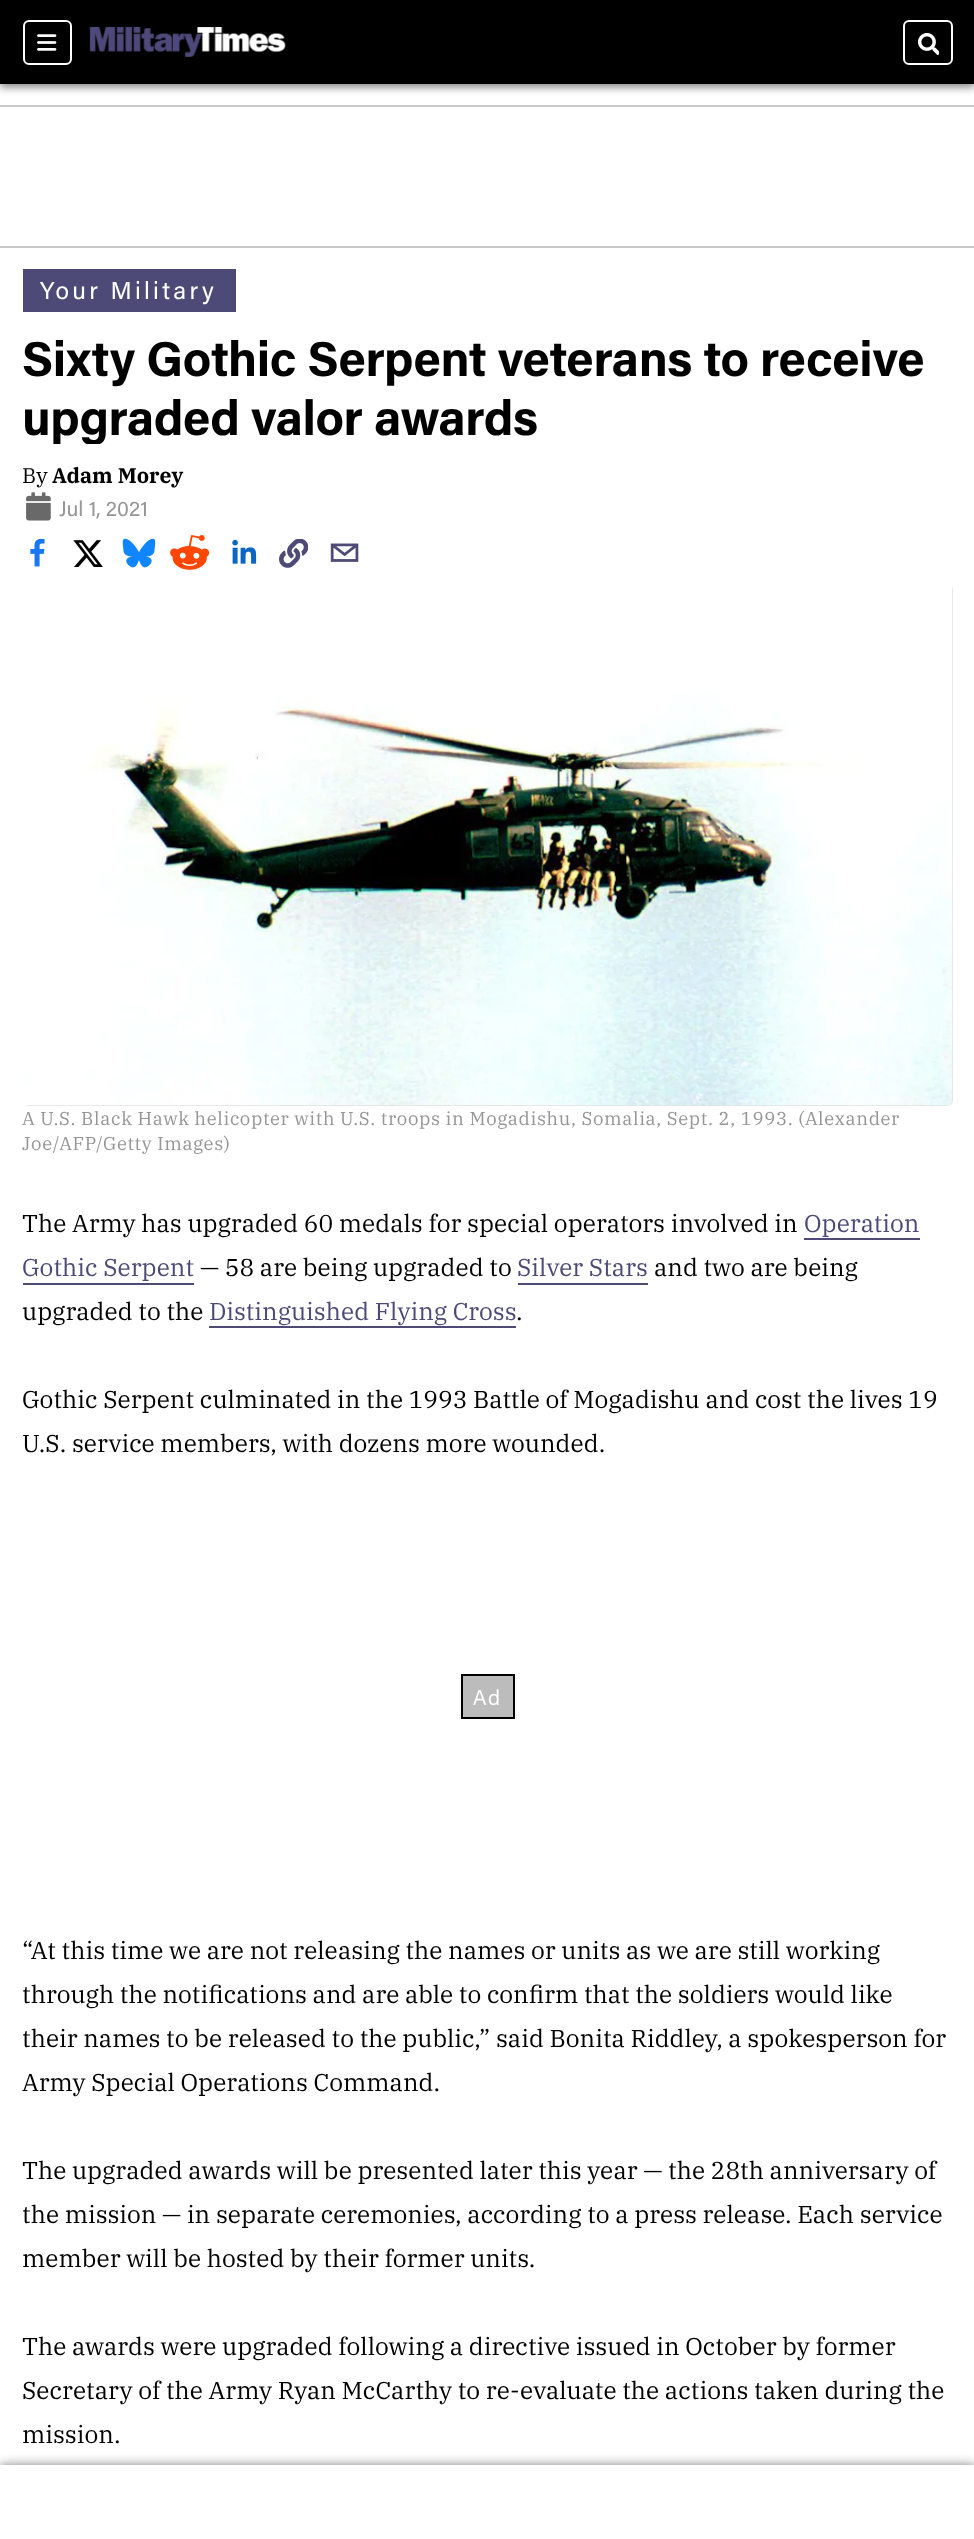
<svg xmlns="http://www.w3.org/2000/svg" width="974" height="2539">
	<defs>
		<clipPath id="clip1"><rect x="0" y="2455" width="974" height="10" /></clipPath>
		<clipPath id="clip2"><rect x="23" y="327" width="930" height="117" /></clipPath>
	</defs>
	<rect width="100%" height="100%" fill="#FFFFFF" />
	<rect x="0" y="3" width="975" height="84" fill="#000000" fill-opacity="0.5" filter="blur(4.5px)" />
	<rect x="0" y="0" width="974" height="84" fill="#000000" />
	<rect x="24" y="21" width="47" height="43" rx="5" fill="none" stroke="#FFFFFF" stroke-width="2" />
	<image x="37" y="34" width="20" height="17" href="assets/img1.png" />
	<image x="89" y="27" width="197" height="30" href="assets/img2.png" />
	<rect x="904" y="21" width="48" height="43" rx="5" fill="none" stroke="#FFFFFF" stroke-width="2" />
	<image x="918" y="33" width="21" height="22" href="assets/img3.png" />
	<g clip-path="url(#clip1)">
		<rect x="0" y="2465" width="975" height="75" fill="#000000" fill-opacity="0.5" filter="blur(5.5px)" />
	</g>
	<rect x="0" y="105" width="974" height="2" fill="#C9C9C9" />
	<rect x="0" y="246" width="974" height="2" fill="#C9C9C9" />
	<rect x="23" y="269" width="213" height="43" fill="#4E4A78" />
	<text x="40" y="299" font-family="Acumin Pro" font-size="24.5" letter-spacing="3.25" fill="#FFFFFF">Your Military</text>
	<text x="22" y="376" font-family="Acumin Pro" font-size="49.2" font-weight="700" letter-spacing="-0.4" fill="#000000">Sixty Gothic Serpent veterans to receive</text>
	<g clip-path="url(#clip2)">
		<text x="22" y="435" font-family="Acumin Pro" font-size="49.2" font-weight="700" letter-spacing="-0.4" fill="#000000">upgraded valor awards</text>
	</g>
	<text x="22" y="483" font-family="IBM Plex Serif" font-size="21.25" fill="#000000">By</text>
	<text x="52" y="483" font-family="IBM Plex Serif" font-size="21.25" font-weight="700" fill="#000000">Adam Morey</text>
	<image x="26" y="492" width="25" height="29" href="assets/img4.png" />
	<text x="59" y="516" font-family="Acumin Pro" font-size="21.25" fill="#969696">Jul 1, 2021</text>
	<image x="30" y="538" width="15" height="29" href="assets/img5.png" />
	<image x="73" y="540" width="30" height="27" href="assets/img6.png" />
	<image x="122" y="538" width="34" height="30" href="assets/img7.png" />
	<image x="170" y="535" width="40" height="35" href="assets/img8.png" />
	<image x="232" y="539" width="25" height="25" href="assets/img9.png" />
	<image x="279" y="539" width="29" height="29" href="assets/img10.png" />
	<image x="330" y="543" width="29" height="19" href="assets/img11.png" />
	<rect x="23" y="584" width="930" height="522" rx="6" fill="#E2E2E2" />
	<image x="23" y="584" width="930" height="522" href="assets/img12.png" />
	<g font-family="IBM Plex Serif" font-size="18.5" letter-spacing="0.62" fill="#969696">
		<text x="22" y="1125">A U.S. Black Hawk helicopter with U.S. troops in Mogadishu, Somalia, Sept. 2, 1993. (Alexander</text>
		<text x="22" y="1150">Joe/AFP/Getty Images)</text>
	</g>
	<text x="22" y="1232" font-family="IBM Plex Serif" font-size="24.45" fill="#000000">The Army has upgraded 60 medals for special operators involved in</text>
	<text x="804" y="1232" font-family="IBM Plex Serif" font-size="24.45" fill="#4E4A78">Operation</text>
	<rect x="804" y="1238" width="116" height="2" fill="#4E4A78" />
	<text x="22" y="1276" font-family="IBM Plex Serif" font-size="24.45" fill="#4E4A78">Gothic Serpent</text>
	<rect x="23" y="1283" width="171" height="2" fill="#4E4A78" />
	<text x="200" y="1276" font-family="IBM Plex Serif" font-size="24.45" fill="#000000">— 58 are being upgraded to</text>
	<text x="517" y="1276" font-family="IBM Plex Serif" font-size="24.45" fill="#4E4A78">Silver Stars</text>
	<rect x="518" y="1283" width="130" height="2" fill="#4E4A78" />
	<g font-family="IBM Plex Serif" font-size="24.45" fill="#000000">
		<text x="654" y="1276">and two are being</text>
		<text x="22" y="1320">upgraded to the</text>
	</g>
	<text x="209" y="1320" font-family="IBM Plex Serif" font-size="24.45" fill="#4E4A78">Distinguished Flying Cross</text>
	<rect x="209" y="1326" width="307" height="2" fill="#4E4A78" />
	<g font-family="IBM Plex Serif" font-size="24.45" fill="#000000">
		<text x="516" y="1320">.</text>
		<text x="22" y="1408">Gothic Serpent culminated in the 1993 Battle of Mogadishu and cost the lives 19</text>
		<text x="22" y="1452">U.S. service members, with dozens more wounded.</text>
	</g>
	<rect x="463" y="1676" width="50" height="41" fill="#BCBCBC" />
	<image x="473" y="1689" width="26" height="17" href="assets/img13.png" />
	<rect x="462" y="1675" width="52" height="43" fill="none" stroke="#000000" stroke-width="2" />
	<g font-family="IBM Plex Serif" font-size="24.45" fill="#000000">
		<text x="22" y="1959">“At this time we are not releasing the names or units as we are still working</text>
		<text x="22" y="2003">through the notifications and are able to confirm that the soldiers would like</text>
		<text x="22" y="2047">their names to be released to the public,” said Bonita Riddley, a spokesperson for</text>
		<text x="22" y="2091">Army Special Operations Command.</text>
		<text x="22" y="2179">The upgraded awards will be presented later this year — the 28th anniversary of</text>
		<text x="22" y="2223">the mission — in separate ceremonies, according to a press release. Each service</text>
		<text x="22" y="2267">member will be hosted by their former units.</text>
		<text x="22" y="2355">The awards were upgraded following a directive issued in October by former</text>
		<text x="22" y="2399">Secretary of the Army Ryan McCarthy to re-evaluate the actions taken during the</text>
		<text x="22" y="2443">mission.</text>
	</g>
</svg>
